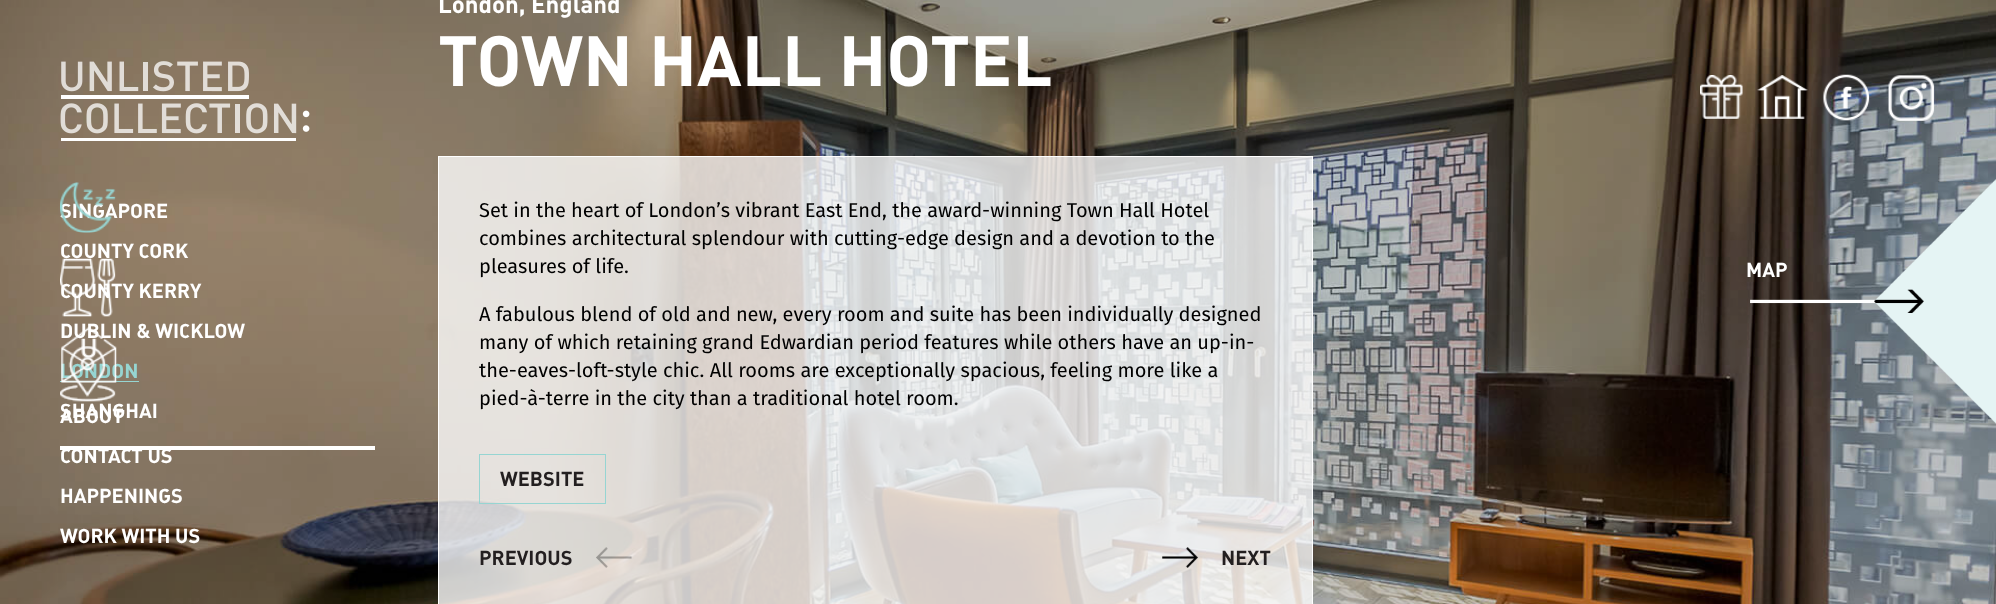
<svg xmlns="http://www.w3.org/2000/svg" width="1996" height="604">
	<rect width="100%" height="100%" fill="#FFFFFF" />
	<image x="0" y="0" width="1996" height="604" href="assets/img1.png" />
	<text x="438" y="13" font-family="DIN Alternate" font-size="24" font-weight="700" fill="#FFFFFF">London, England</text>
	<text x="438" y="86" font-family="DIN Alternate" font-size="70" font-weight="700" fill="#FFFFFF">TOWN HALL HOTEL</text>
	<rect x="438.5" y="156.5" width="874" height="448" fill="#FFFFFF" fill-opacity="0.79" stroke="#FFFFFF" />
	<g font-family="Fira Sans" font-size="20" fill="#000000">
		<text x="479" y="217">Set in the heart of London’s vibrant East End, the award-winning Town Hall Hotel</text>
		<text x="479" y="245">combines architectural splendour with cutting-edge design and a devotion to the</text>
		<text x="479" y="273">pleasures of life.</text>
		<text x="479" y="321">A fabulous blend of old and new, every room and suite has been individually designed</text>
		<text x="479" y="349">many of which retaining grand Edwardian period features while others have an up-in-</text>
		<text x="479" y="377">the-eaves-loft-style chic. All rooms are exceptionally spacious, feeling more like a</text>
		<text x="479" y="405">pied-à-terre in the city than a traditional hotel room.</text>
	</g>
	<rect x="479.5" y="454.5" width="126" height="49" fill="none" stroke="#96D5D2" />
	<text x="500" y="486" font-family="DIN Alternate" font-size="20" font-weight="700" fill="#231F20">WEBSITE</text>
	<image x="1750" y="179" width="246" height="245" href="assets/img2.png" />
	<text x="1746" y="277" font-family="DIN Alternate" font-size="20" font-weight="700" fill="#FFFFFF">MAP</text>
	<image x="596" y="547" width="36" height="21" href="assets/img3.png" />
	<text x="479" y="565" font-family="DIN Alternate" font-size="20" font-weight="700" fill="#231F20">PREVIOUS</text>
	<image x="1162" y="547" width="36" height="21" href="assets/img4.png" />
	<text x="1221" y="565" font-family="DIN Alternate" font-size="20" font-weight="700" fill="#231F20">NEXT</text>
	<image x="60" y="61" width="250" height="80" href="assets/img5.png" />
	<image x="1700" y="75" width="43" height="44" href="assets/img6.png" />
	<image x="1757" y="75" width="51" height="44" href="assets/img7.png" />
	<image x="1823" y="74" width="47" height="47" href="assets/img8.png" />
	<image x="1888" y="75" width="47" height="46" href="assets/img9.png" />
	<text x="60" y="218" font-family="DIN Alternate" font-size="20" font-weight="700" fill="#FFFFFF">SINGAPORE</text>
	<image x="60" y="182" width="56" height="51" href="assets/img10.png" />
	<g font-family="DIN Alternate" font-size="20" font-weight="700" fill="#FFFFFF">
		<text x="60" y="258">COUNTY CORK</text>
		<text x="60" y="298">COUNTY KERRY</text>
	</g>
	<image x="60" y="258" width="56" height="59" href="assets/img11.png" />
	<text x="60" y="378" font-family="DIN Alternate" font-size="20" font-weight="700" fill="#96D5D2">LONDON</text>
	<rect x="60" y="381" width="79" height="1" fill="#96D5D2" />
	<image x="60" y="346" width="56" height="56" href="assets/img12.png" />
	<g font-family="DIN Alternate" font-size="20" font-weight="700" fill="#FFFFFF">
		<text x="60" y="338">DUBLIN &amp; WICKLOW</text>
		<text x="60" y="418">SHANGHAI</text>
	</g>
	<rect x="60" y="446" width="315" height="4" fill="#FFFFFF" />
	<image x="61" y="327" width="56" height="56" href="assets/img13.png" />
	<g font-family="DIN Alternate" font-size="20" font-weight="700" fill="#FFFFFF">
		<text x="60" y="423">ABOUT</text>
		<text x="60" y="463">CONTACT US</text>
		<text x="60" y="503">HAPPENINGS</text>
		<text x="60" y="543">WORK WITH US</text>
	</g>
</svg>
